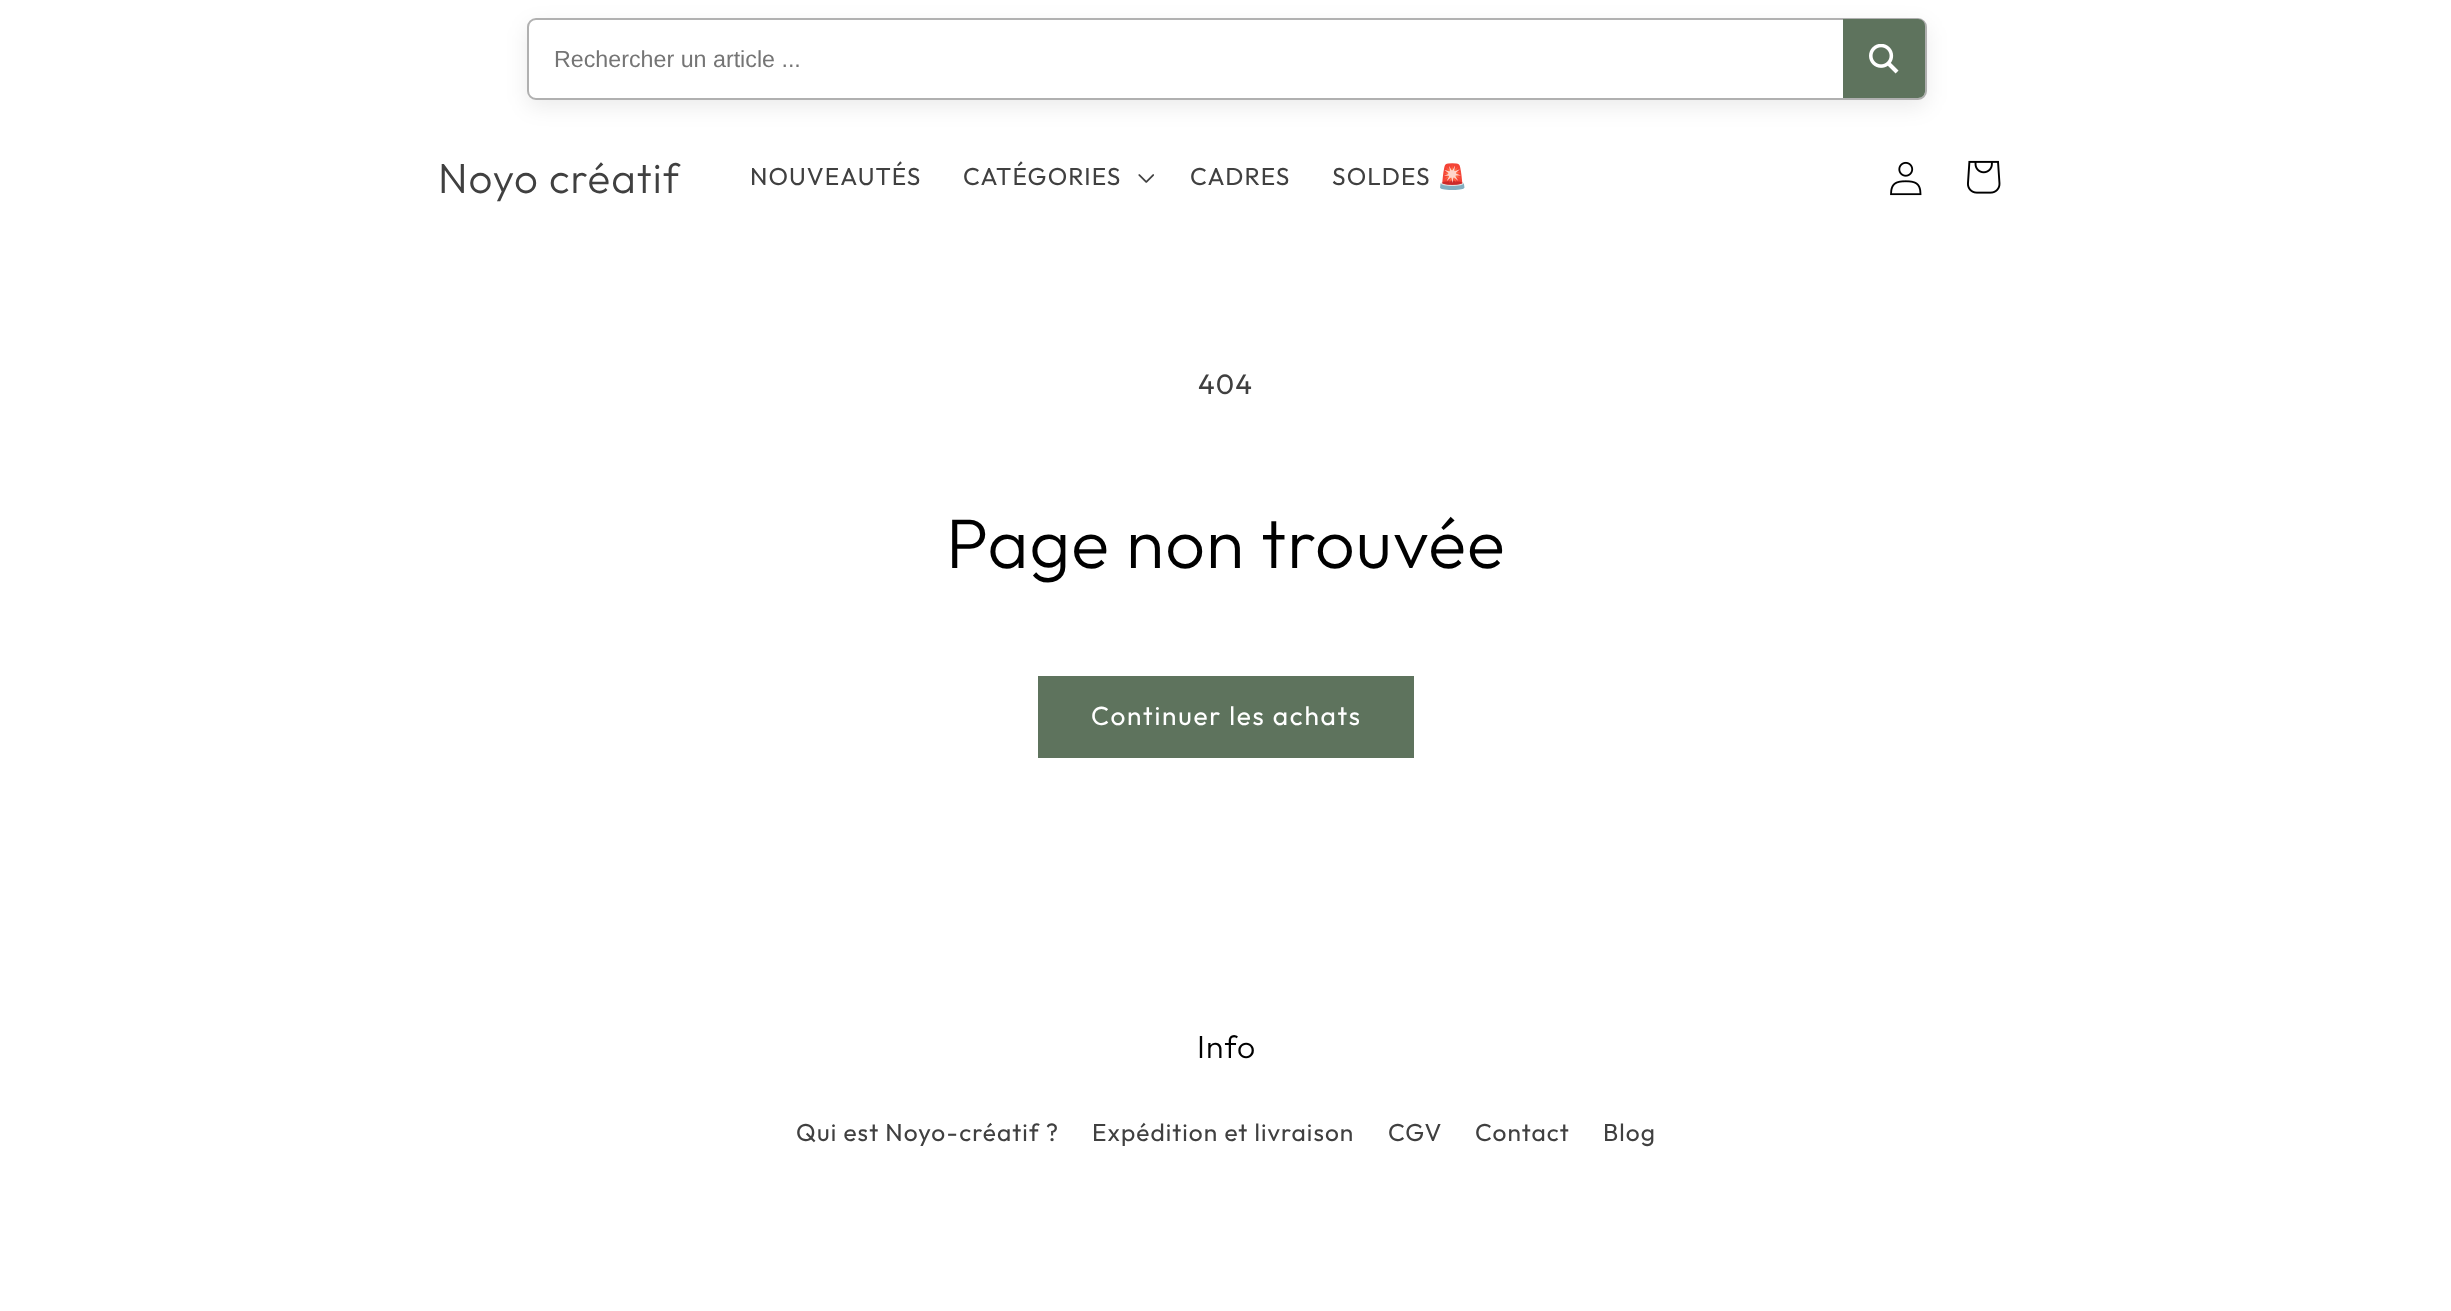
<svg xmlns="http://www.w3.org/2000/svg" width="2451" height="1311">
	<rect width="100%" height="100%" fill="#FFFFFF" />
	<rect x="527" y="25" width="1400" height="82" rx="9" fill="#000000" fill-opacity="0.08" filter="blur(10.5px)" />
	<rect x="528" y="19" width="1398" height="80" rx="8" fill="#FFFFFF" stroke="#B0B0B0" stroke-width="2" />
	<text x="554" y="67" font-family="Liberation Sans" font-size="23.25" fill="#757575">Rechercher un article ...</text>
	<path d="M1843 19H1918C1922 19 1925 22 1925 26V91C1925 95 1922 98 1918 98H1843Z" fill="#5E735D" />
	<image x="1869" y="44" width="30" height="30" href="assets/img1.png" />
	<text x="438" y="193" font-family="Outfit" font-size="42" font-weight="300" letter-spacing="1.05" fill="#404040">Noyo créatif</text>
	<g font-family="Outfit" font-size="24.5" letter-spacing="1.05" fill="#404040">
		<text x="750" y="185">NOUVEAUTÉS</text>
		<text x="963" y="185">CATÉGORIES</text>
	</g>
	<image x="1138" y="174" width="16" height="9" href="assets/img2.png" />
	<g font-family="Outfit" font-size="24.5" letter-spacing="1.05" fill="#404040">
		<text x="1190" y="185">CADRES</text>
		<text x="1332" y="185">SOLDES</text>
	</g>
	<text x="1437" y="185" font-family="Noto Color Emoji" font-size="24.5" letter-spacing="1.05" fill="#404040">🚨</text>
	<image x="1890" y="161" width="32" height="35" href="assets/img3.png" />
	<image x="1967" y="160" width="34" height="34" href="assets/img4.png" />
	<text x="1198" y="394" font-family="Outfit" font-size="28" letter-spacing="1.05" fill="#404040">404</text>
	<text x="946" y="568" font-family="Outfit" font-size="70" font-weight="300" letter-spacing="1.05" fill="#000000">Page non trouvée</text>
	<rect x="1038" y="676" width="376" height="82" fill="#5E735D" />
	<text x="1091" y="725" font-family="Outfit" font-size="26.25" letter-spacing="1.75" fill="#FFFFFF">Continuer les achats</text>
	<text x="1197" y="1058" font-family="Outfit" font-size="32" font-weight="300" letter-spacing="1.05" fill="#000000">Info</text>
	<g font-family="Outfit" font-size="24.5" letter-spacing="1.05" fill="#404040">
		<text x="796" y="1141">Qui est Noyo-créatif ?</text>
		<text x="1092" y="1141">Expédition et livraison</text>
		<text x="1388" y="1141">CGV</text>
		<text x="1475" y="1141">Contact</text>
		<text x="1603" y="1141">Blog</text>
	</g>
</svg>
